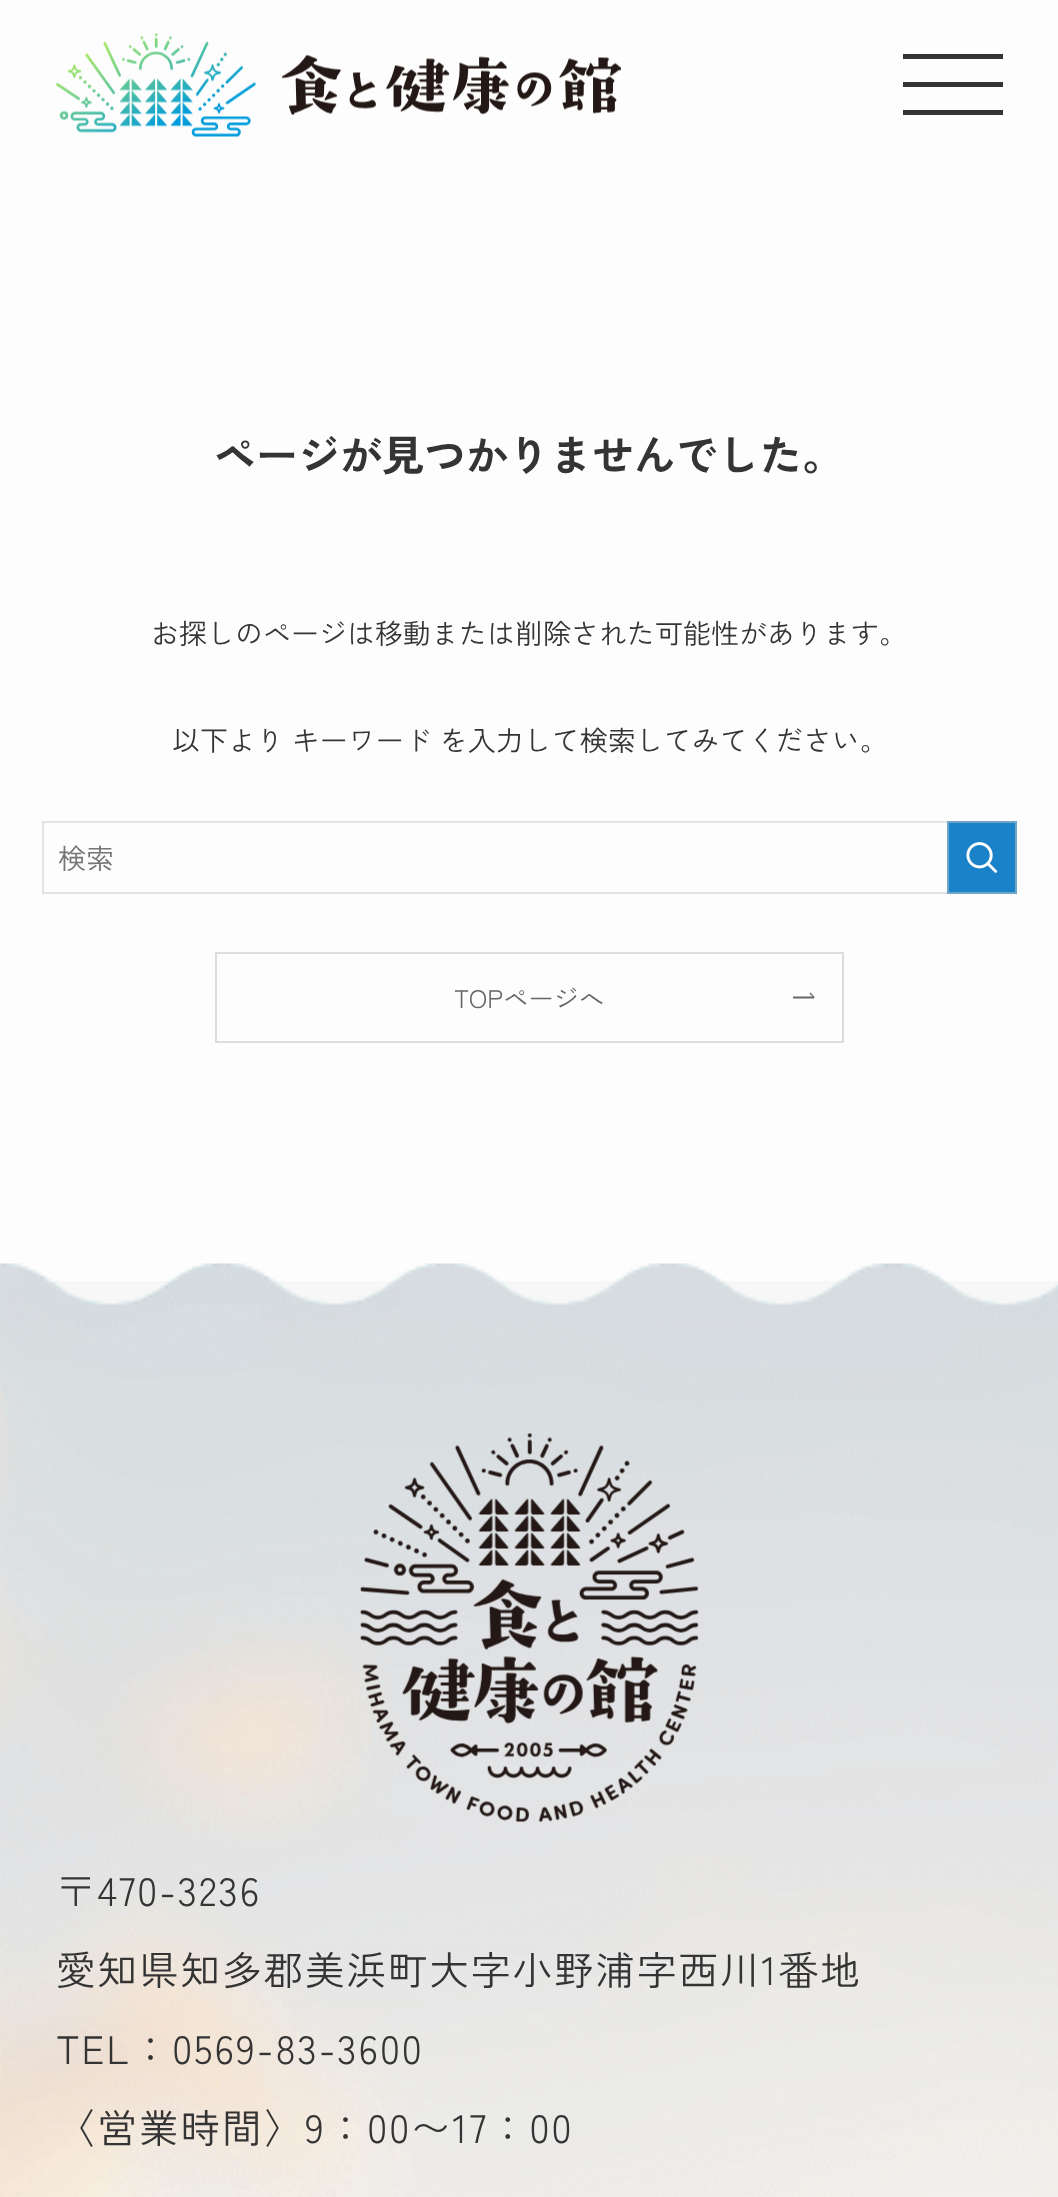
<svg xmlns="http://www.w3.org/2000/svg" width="1058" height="2197">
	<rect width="100%" height="100%" fill="#FDFDFD" />
	<image x="56" y="33" width="565" height="104" href="assets/img1.png" />
	<rect x="903" y="54" width="100" height="5" fill="#343434" />
	<rect x="903" y="82" width="100" height="5" fill="#343434" />
	<rect x="903" y="110" width="100" height="5" fill="#343434" />
	<text x="214" y="471" font-family="Zen Kaku Gothic New" font-size="42" font-weight="700" fill="#343434">ページが見つかりませんでした。</text>
	<g font-family="Zen Kaku Gothic New" font-size="28" fill="#343434">
		<text x="151" y="644">お探しのページは移動または削除された可能性があります。</text>
		<text x="172" y="751">以下より キーワード を入力して検索してみてください。</text>
	</g>
	<rect x="43" y="822" width="973" height="71" fill="none" stroke="#E3E3E3" stroke-width="2" />
	<text x="58" y="869" font-family="Zen Kaku Gothic New" font-size="28" fill="#757575">検索</text>
	<rect x="948" y="822" width="68" height="71" fill="#1982C8" stroke="#70A5C8" stroke-width="2" />
	<image x="966" y="842" width="32" height="31" href="assets/img2.png" />
	<rect x="216" y="953" width="627" height="89" fill="none" stroke="#DCDCDC" stroke-width="2" />
	<text x="454" y="1008" font-family="Zen Kaku Gothic New" font-size="25.25" fill="#666666">TOPページへ</text>
	<path d="M814 998.5H793V996.5H812.5L809.5 993.5L810.5 992.5L814.5 997Z" fill="#666666" />
	<rect x="45" y="1281" width="1013" height="24" fill="#F7F7F7" />
	<image x="0" y="1263" width="1058" height="934" href="assets/img3.png" />
	<image x="360" y="1433" width="339" height="389" href="assets/img4.png" />
	<g font-family="Zen Kaku Gothic New" font-size="39.5" letter-spacing="2" fill="#343434">
		<text x="56" y="1906">〒470-3236</text>
		<text x="56" y="1985">愛知県知多郡美浜町大字小野浦字西川1番地</text>
		<text x="56" y="2064">TEL：0569-83-3600</text>
		<text x="56" y="2143">〈営業時間〉9：00〜17：00</text>
	</g>
</svg>
